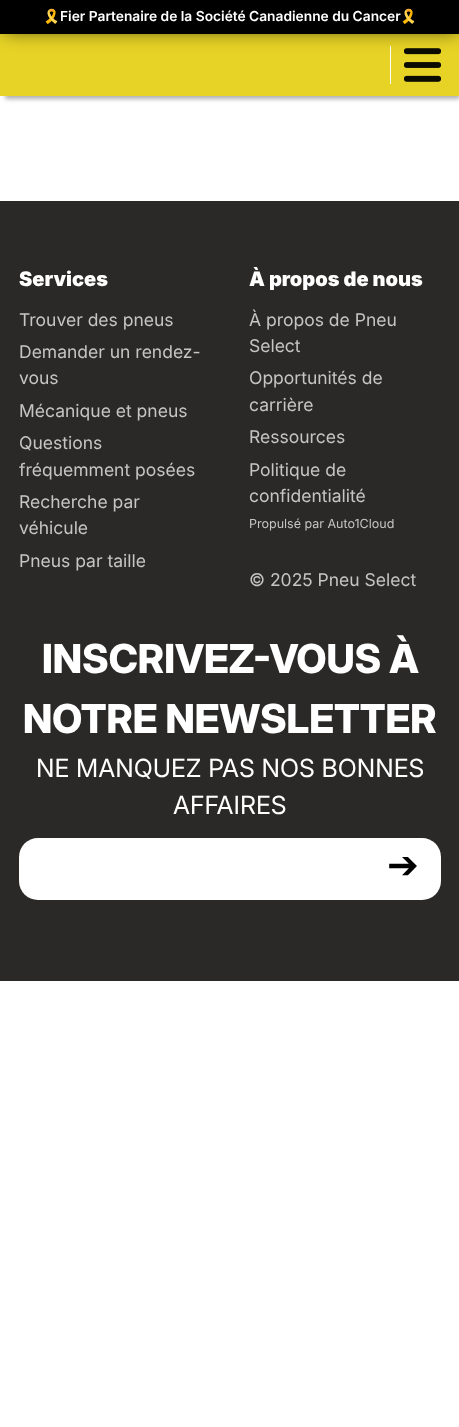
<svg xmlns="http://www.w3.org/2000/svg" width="459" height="1427">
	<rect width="100%" height="100%" fill="#FFFFFF" />
	<rect x="5" y="8" width="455" height="91" fill="#000000" fill-opacity="0.31" filter="blur(2px)" />
	<rect x="0" y="34" width="459" height="62" fill="#E7D326" />
	<rect x="390" y="46" width="1" height="38" fill="#FFFFFF" />
	<image x="404" y="48" width="37" height="34" href="assets/img1.png" />
	<rect x="4" y="1" width="455" height="29" fill="#000000" fill-opacity="0.74" filter="blur(9.5px)" />
	<rect x="0" y="0" width="459" height="34" fill="#000000" />
	<text x="43" y="21" font-family="Noto Color Emoji" font-size="13.75" font-weight="700" fill="#FFFFFF">🎗️</text>
	<text x="60" y="21" font-family="Inter" font-size="13.75" font-weight="600" fill="#FFFFFF">Fier Partenaire de la Société Canadienne du Cancer</text>
	<text x="400" y="21" font-family="Noto Color Emoji" font-size="13.75" font-weight="700" fill="#FFFFFF">🎗️</text>
	<rect x="0" y="201" width="459" height="780" fill="#2B2928" />
	<text x="19" y="286" font-family="Inter" font-size="20" font-weight="900" fill="#FFFFFF">Services</text>
	<g font-family="Inter" font-size="17.5" fill="#C5C5C5">
		<text x="19" y="326">Trouver des pneus</text>
		<text x="19" y="358">Demander un rendez-</text>
		<text x="19" y="384">vous</text>
		<text x="19" y="417">Mécanique et pneus</text>
		<text x="19" y="449">Questions</text>
		<text x="19" y="476">fréquemment posées</text>
		<text x="19" y="508">Recherche par</text>
		<text x="19" y="534">véhicule</text>
		<text x="19" y="567">Pneus par taille</text>
	</g>
	<text x="249" y="286" font-family="Inter" font-size="20" font-weight="900" fill="#FFFFFF">À propos de nous</text>
	<g font-family="Inter" font-size="17.5" fill="#C5C5C5">
		<text x="249" y="326">À propos de Pneu</text>
		<text x="249" y="352">Select</text>
		<text x="249" y="384">Opportunités de</text>
		<text x="249" y="411">carrière</text>
		<text x="249" y="443">Ressources</text>
		<text x="249" y="476">Politique de</text>
		<text x="249" y="502">confidentialité</text>
	</g>
	<text x="249" y="528" font-family="Inter" font-size="12.5" fill="#C5C5C5">Propulsé par Auto1Cloud</text>
	<text x="249" y="586" font-family="Inter" font-size="17.5" fill="#C5C5C5">© 2025 Pneu Select</text>
	<g font-family="Inter" font-size="40" font-weight="800" fill="#FFFFFF">
		<text x="42" y="673">INSCRIVEZ-VOUS À</text>
		<text x="23" y="733">NOTRE NEWSLETTER</text>
	</g>
	<g font-family="'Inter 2'" font-size="25" fill="#FFFFFF">
		<text x="36" y="777">NE MANQUEZ PAS NOS BONNES</text>
		<text x="173" y="814">AFFAIRES</text>
	</g>
	<rect x="19" y="838" width="422" height="62" rx="19" fill="#FFFFFF" />
	<text x="387" y="878" font-family="DejaVu Sans" font-size="38" fill="#000000">➔</text>
</svg>
